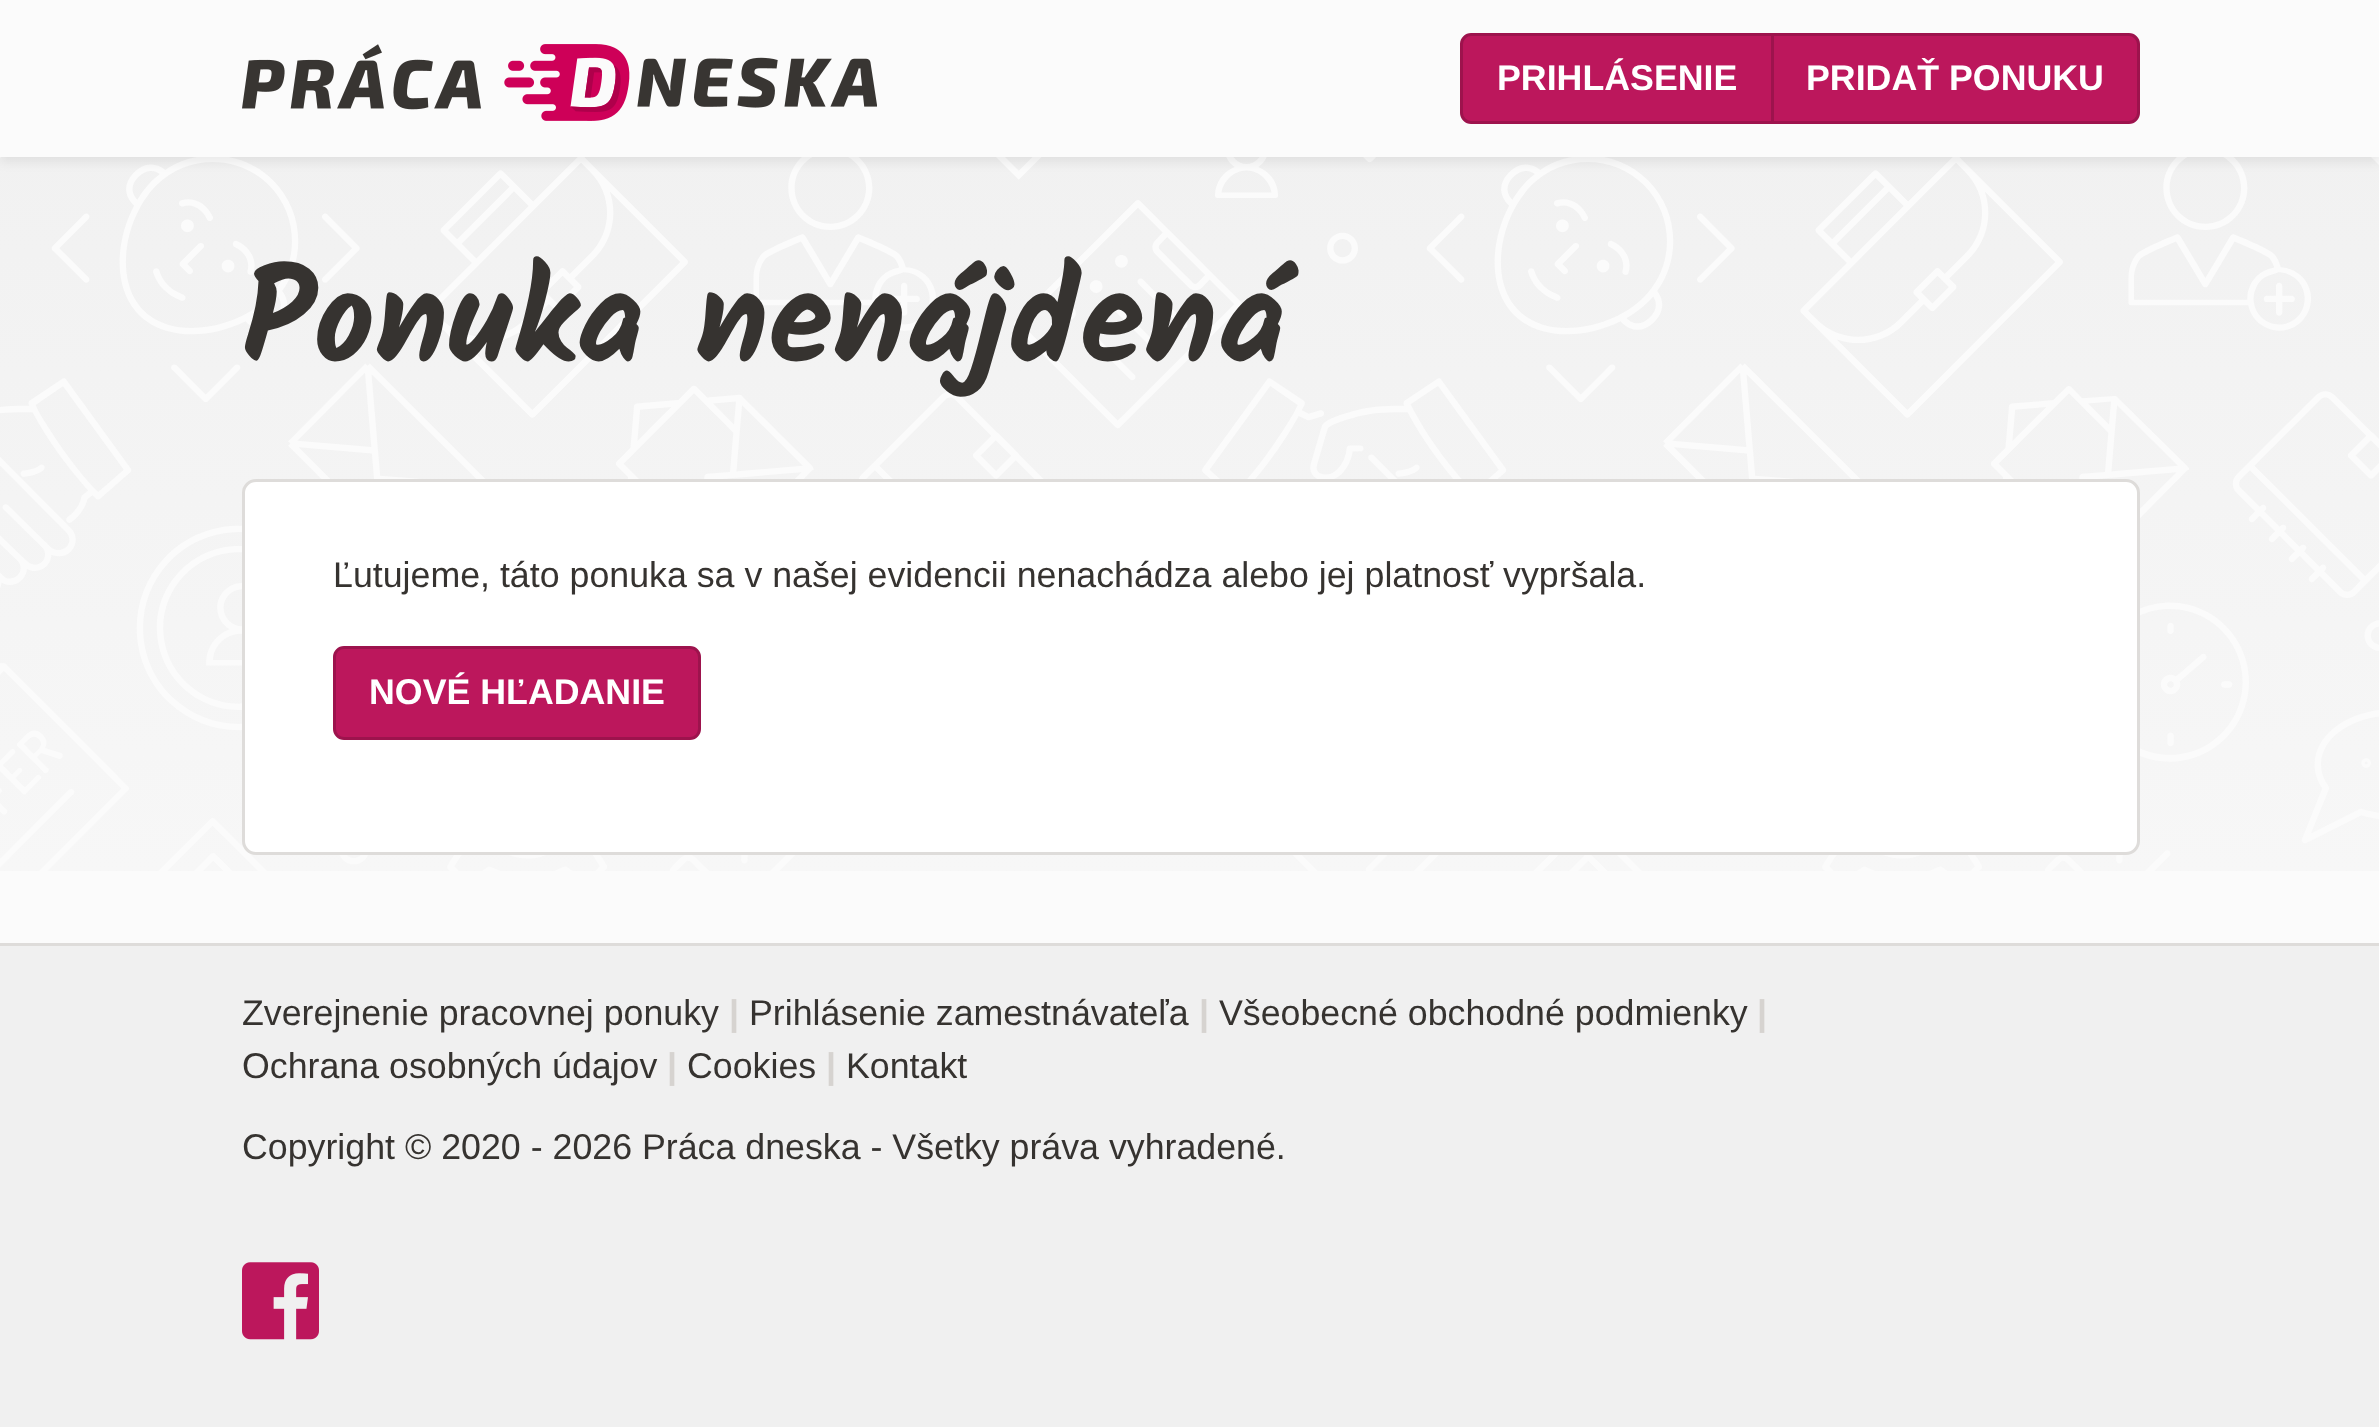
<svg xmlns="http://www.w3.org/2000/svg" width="2379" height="1427">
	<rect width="100%" height="100%" fill="#F0F0F0" />
	<image x="0" y="157" width="2379" height="714" href="assets/img2.png" />
	<rect x="0" y="6" width="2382" height="156" fill="#000000" fill-opacity="0.07" filter="blur(5.5px)" />
	<rect x="0" y="0" width="2379" height="157" fill="#FBFBFB" />
	<image x="242" y="44" width="635" height="77" href="assets/img1.png" />
	<path d="M1471 34.5H1772.5V122.5H1471C1466 122.5 1461.5 118 1461.5 113V44C1461.5 39 1466 34.5 1471 34.5Z" fill="#BC175C" stroke="#9D134D" stroke-width="3" />
	<text x="1497" y="90" font-family="Liberation Sans" font-size="35.75" font-weight="700" fill="#FFFFFF">PRIHLÁSENIE</text>
	<path d="M1772.5 34.5H2129C2134 34.5 2138.5 39 2138.5 44V113C2138.5 118 2134 122.5 2129 122.5H1772.5Z" fill="#BC175C" stroke="#9D134D" stroke-width="3" />
	<text x="1806" y="90" font-family="Liberation Sans" font-size="35.75" font-weight="700" fill="#FFFFFF">PRIDAŤ PONUKU</text>
	<rect x="0" y="871" width="2379" height="72" fill="#FBFBFB" />
	<rect x="0" y="943" width="2379" height="3" fill="#DEDCDA" />
	<text x="242" y="363" font-family="Kalam" font-size="132" font-weight="700" fill="#363330">Ponuka nenájdená</text>
	<rect x="243.5" y="480.5" width="1895" height="373" rx="12.5" fill="#FFFFFF" stroke="#DEDCDA" stroke-width="3" />
	<text x="333" y="587" font-family="Liberation Sans" font-size="35.75" fill="#363330">Ľutujeme, táto ponuka sa v našej evidencii nenachádza alebo jej platnosť vypršala.</text>
	<rect x="334.5" y="647.5" width="365" height="91" rx="9.5" fill="#BC175C" stroke="#9D134D" stroke-width="3" />
	<text x="369" y="704" font-family="Liberation Sans" font-size="35.75" font-weight="700" fill="#FFFFFF">NOVÉ HĽADANIE</text>
	<text x="242" y="1025" font-family="Liberation Sans" font-size="35.75" fill="#363330">Zverejnenie pracovnej ponuky</text>
	<text x="729" y="1025" font-family="Liberation Sans" font-size="35.75" font-weight="700" fill="#D6D3D0">|</text>
	<text x="749" y="1025" font-family="Liberation Sans" font-size="35.75" fill="#363330">Prihlásenie zamestnávateľa</text>
	<text x="1199" y="1025" font-family="Liberation Sans" font-size="35.75" font-weight="700" fill="#D6D3D0">|</text>
	<text x="1219" y="1025" font-family="Liberation Sans" font-size="35.75" fill="#363330">Všeobecné obchodné podmienky</text>
	<text x="1757" y="1025" font-family="Liberation Sans" font-size="35.75" font-weight="700" fill="#D6D3D0">|</text>
	<text x="242" y="1078" font-family="Liberation Sans" font-size="35.75" fill="#363330">Ochrana osobných údajov</text>
	<text x="667" y="1078" font-family="Liberation Sans" font-size="35.75" font-weight="700" fill="#D6D3D0">|</text>
	<text x="687" y="1078" font-family="Liberation Sans" font-size="35.75" fill="#363330">Cookies</text>
	<text x="826" y="1078" font-family="Liberation Sans" font-size="35.75" font-weight="700" fill="#D6D3D0">|</text>
	<g font-family="Liberation Sans" font-size="35.75" fill="#363330">
		<text x="846" y="1078">Kontakt</text>
		<text x="242" y="1159">Copyright © 2020 - 2026 Práca dneska - Všetky práva vyhradené.</text>
	</g>
	<image x="242" y="1262" width="77" height="78" href="assets/img3.png" />
</svg>
